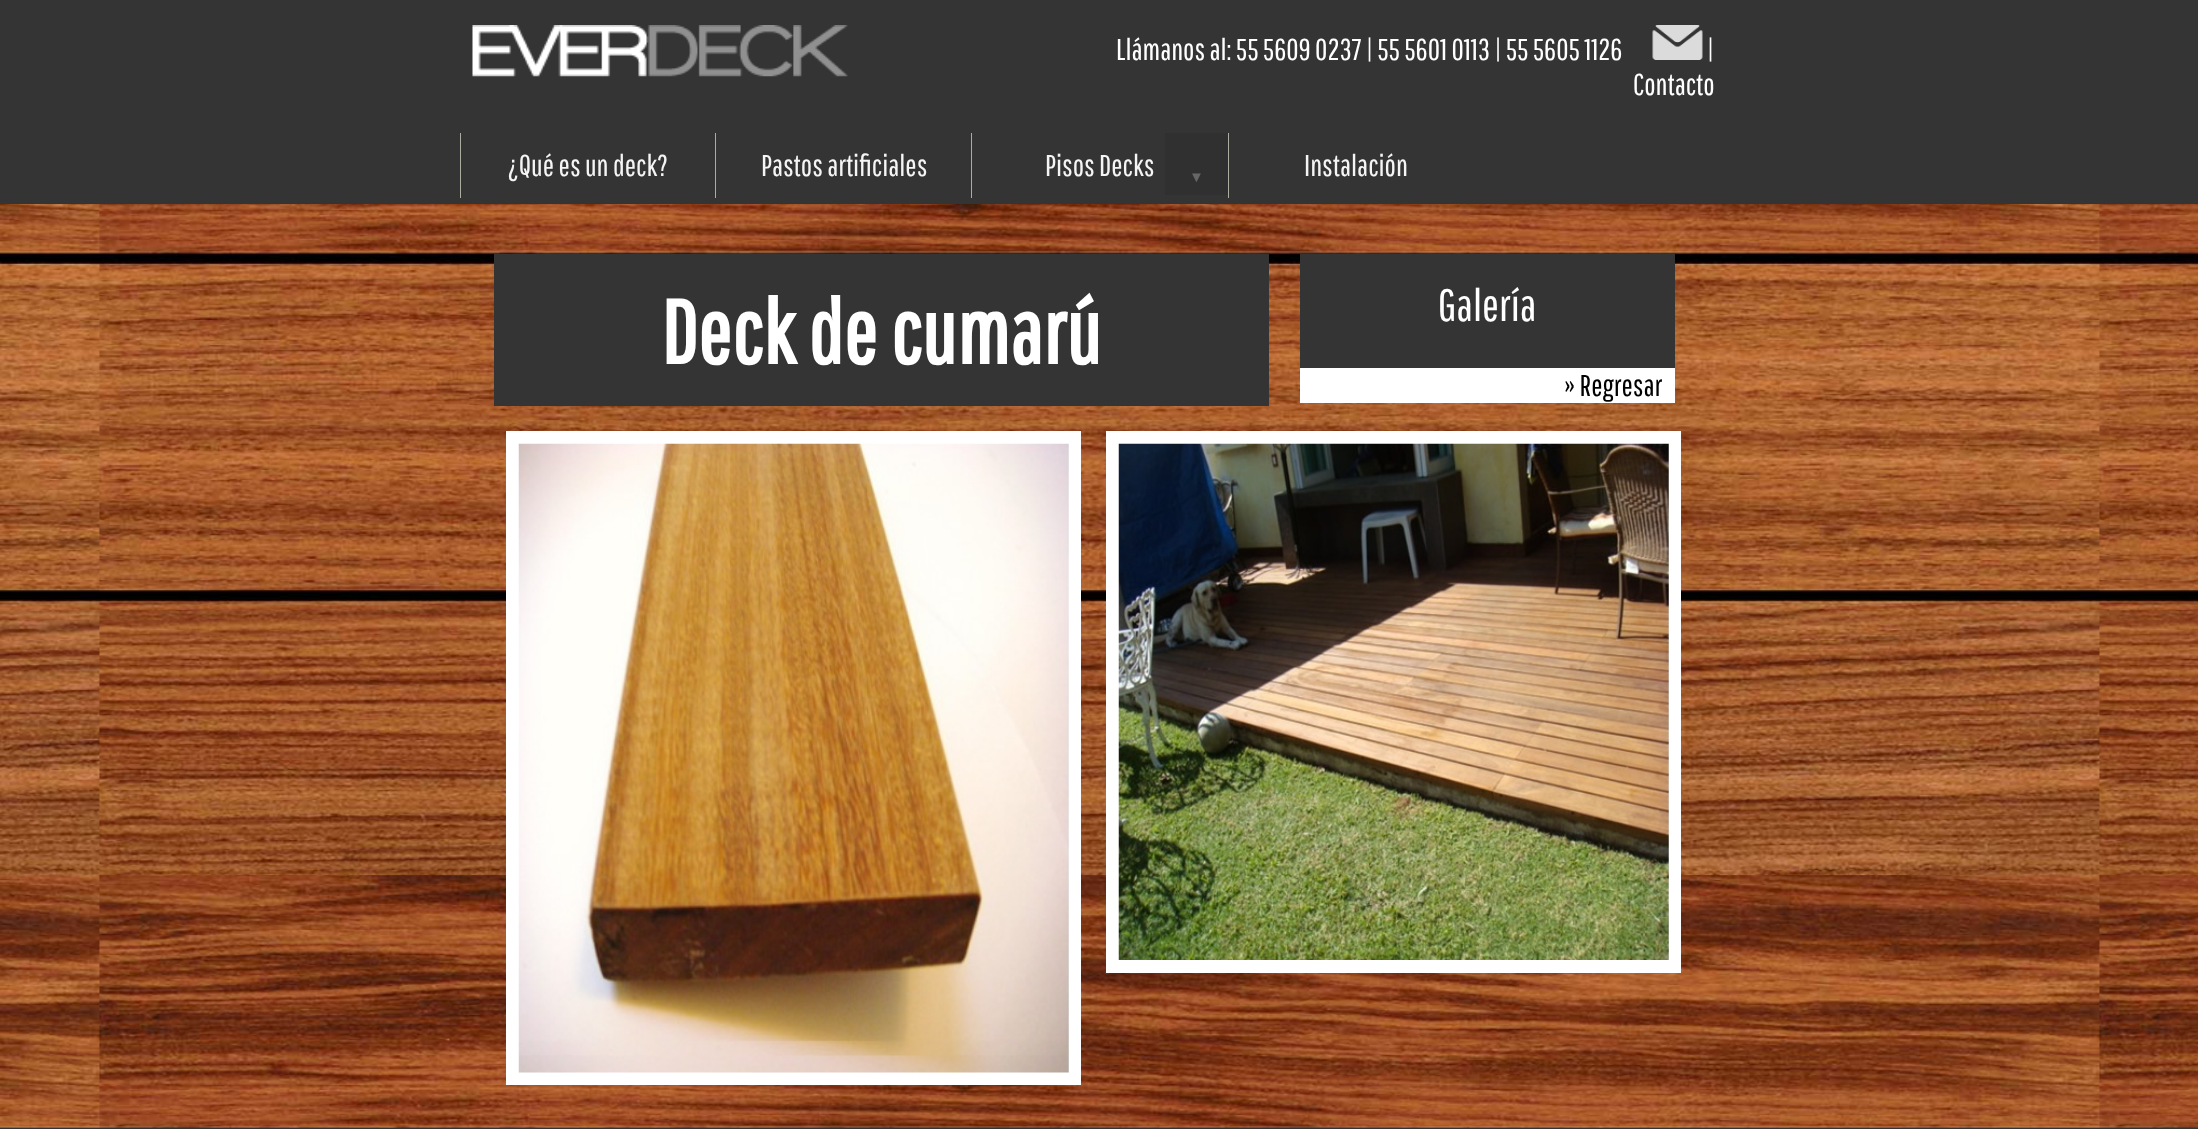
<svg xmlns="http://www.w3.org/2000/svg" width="2198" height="1129">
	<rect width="100%" height="100%" fill="#FFFFFF" />
	<image x="0" y="204" width="2198" height="924" href="assets/img1.png" />
	<rect x="0" y="0" width="2198" height="204" fill="#343434" />
	<image x="472" y="25" width="376" height="52" href="assets/img2.png" />
	<text x="1116" y="60" font-family="Pathway Gothic One" font-size="30" fill="#FFFFFF">Llámanos al: 55 5609 0237 | 55 5601 0113 | 55 5605 1126</text>
	<image x="1652" y="25" width="51" height="35" href="assets/img3.png" />
	<g font-family="Pathway Gothic One" font-size="30" fill="#FFFFFF">
		<text x="1707" y="60">|</text>
		<text x="1633" y="95">Contacto</text>
	</g>
	<rect x="460" y="133" width="1" height="65" fill="#ACACA1" />
	<text x="508" y="176" font-family="Pathway Gothic One" font-size="30" fill="#F5F5F5">¿Qué es un deck?</text>
	<rect x="715" y="133" width="1" height="65" fill="#ACACA1" />
	<text x="761" y="176" font-family="Pathway Gothic One" font-size="30" fill="#F5F5F5">Pastos artificiales</text>
	<rect x="971" y="133" width="1" height="65" fill="#ACACA1" />
	<text x="1045" y="176" font-family="Pathway Gothic One" font-size="30" fill="#F5F5F5">Pisos Decks</text>
	<rect x="1165" y="133" width="63" height="62" fill="#303030" />
	<text x="1189" y="182" font-family="Liberation Sans" font-size="15" font-style="italic" fill="#666666">▼</text>
	<rect x="1228" y="133" width="1" height="65" fill="#ACACA1" />
	<text x="1304" y="176" font-family="Pathway Gothic One" font-size="30" fill="#F5F5F5">Instalación</text>
	<rect x="494" y="254" width="775" height="152" fill="#343434" />
	<text x="661" y="364" font-family="Pathway Gothic One" font-size="90" font-weight="700" fill="#FFFFFF">Deck de cumarú</text>
	<rect x="1300" y="254" width="375" height="114" fill="#343434" />
	<text x="1438" y="321" font-family="Pathway Gothic One" font-size="45" fill="#FFFFFF">Galería</text>
	<rect x="1300" y="368" width="375" height="35" fill="#FFFFFF" />
	<text x="1565" y="396" font-family="Pathway Gothic One" font-size="30" fill="#000000">» Regresar</text>
	<rect x="506" y="431" width="575" height="654" fill="#FFFFFF" />
	<image x="518" y="443" width="551" height="630" href="assets/img4.png" />
	<rect x="1106" y="431" width="575" height="542" fill="#FFFFFF" />
	<image x="1118" y="443" width="551" height="517" href="assets/img5.png" />
	<rect x="0" y="1128" width="2198" height="1" fill="#343434" />
</svg>
